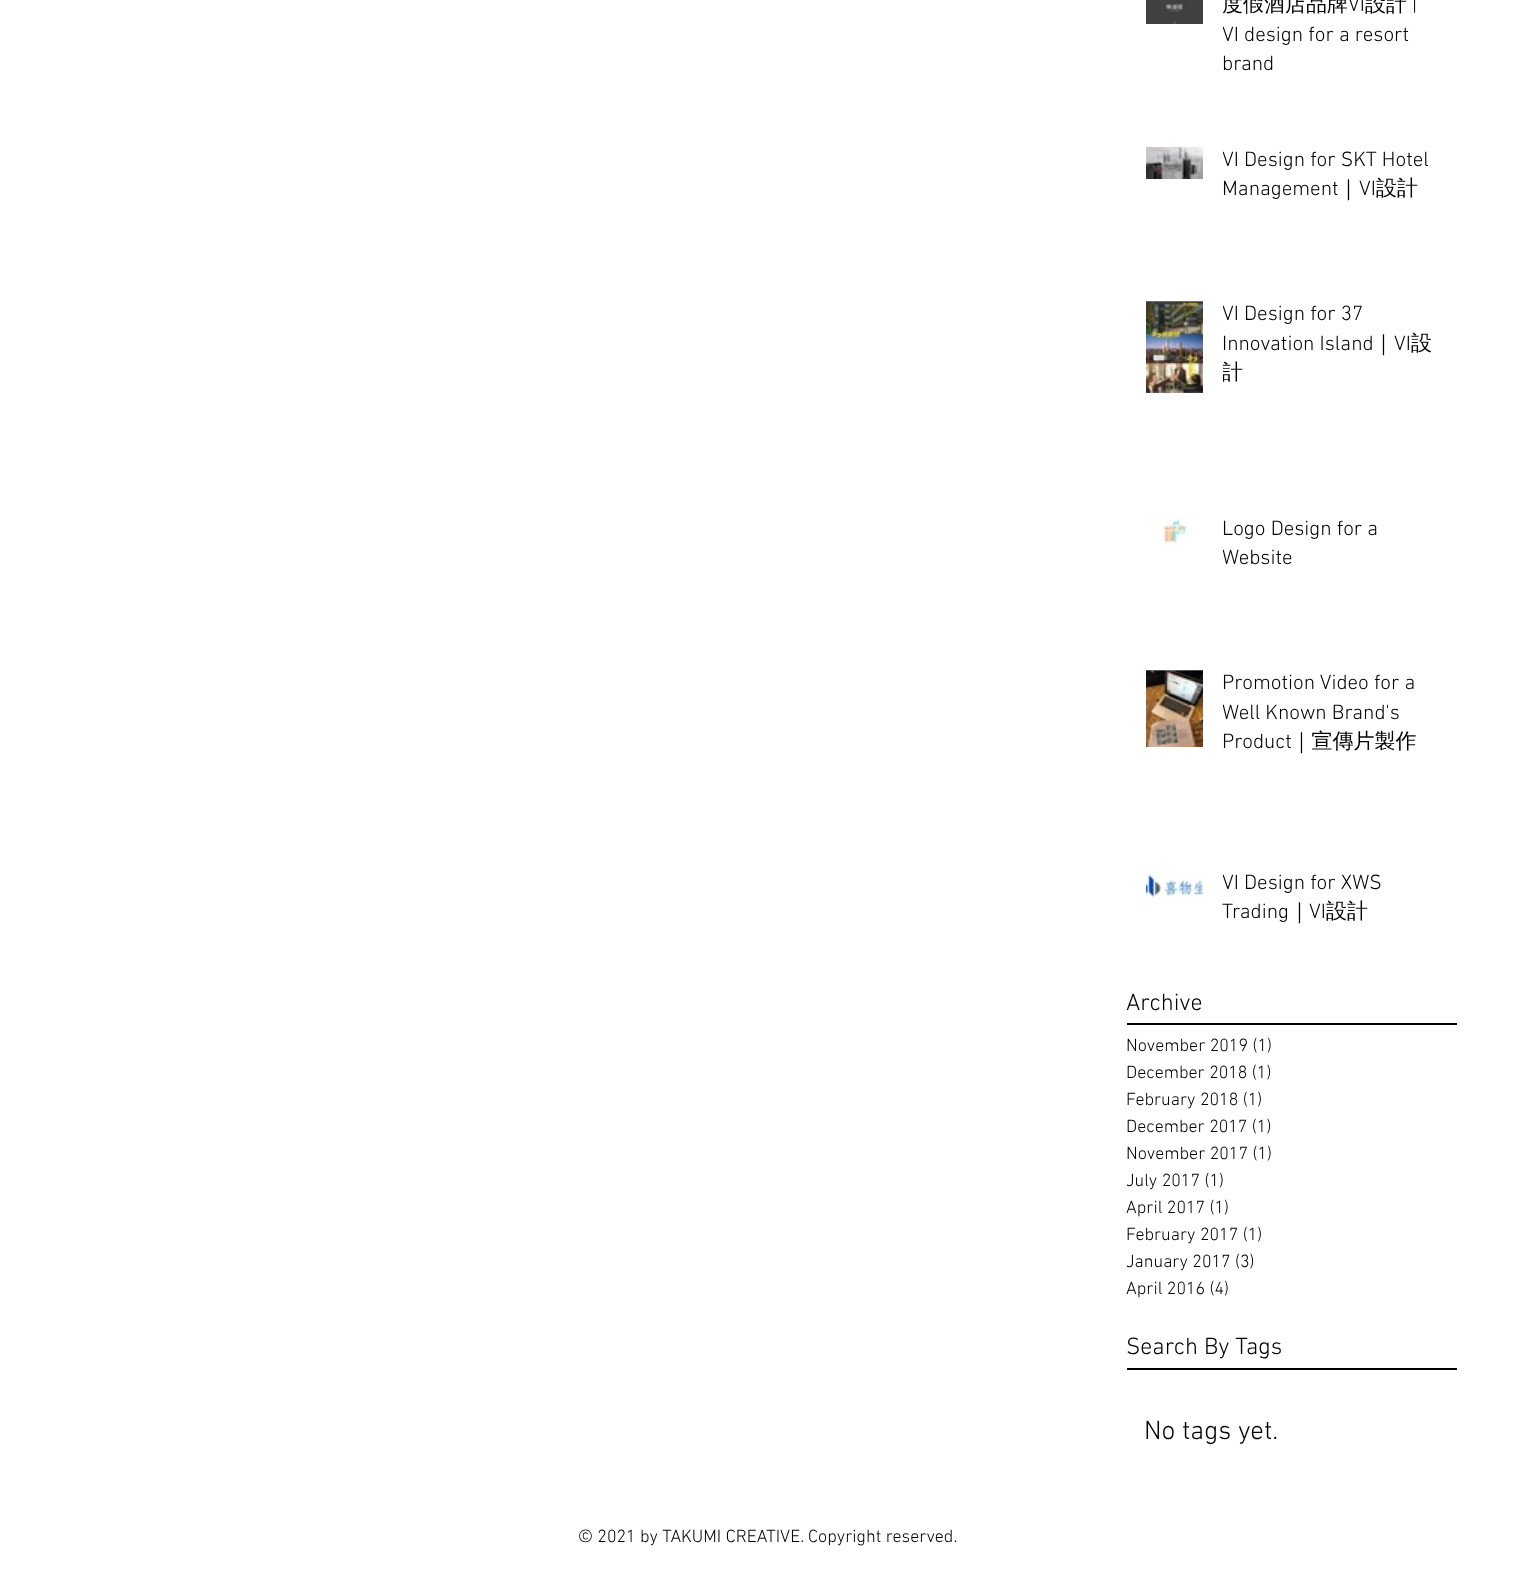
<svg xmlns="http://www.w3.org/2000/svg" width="1534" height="1584">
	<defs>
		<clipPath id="clip1"><rect x="1223" y="0" width="216" height="80" /></clipPath>
		<clipPath id="clip2"><rect x="1223" y="146" width="216" height="60" /></clipPath>
		<clipPath id="clip3"><rect x="1223" y="300" width="216" height="89" /></clipPath>
		<clipPath id="clip4"><rect x="1223" y="515" width="216" height="60" /></clipPath>
		<clipPath id="clip5"><rect x="1223" y="669" width="216" height="89" /></clipPath>
		<clipPath id="clip6"><rect x="1223" y="869" width="216" height="60" /></clipPath>
	</defs>
	<rect width="100%" height="100%" fill="#FFFFFF" />
	<image x="1146" y="0" width="57" height="24" href="assets/img1.png" />
	<image x="1163" y="0" width="24" height="24" href="assets/img2.png" />
	<text x="1222" y="11" font-family="WenQuanYi Zen Hei" font-size="21" font-weight="500" fill="#000000">度假酒店品牌</text>
	<text x="1348" y="11" font-family="'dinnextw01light'" font-size="21" font-weight="300" fill="#000000">VI</text>
	<text x="1365" y="11" font-family="WenQuanYi Zen Hei" font-size="21" font-weight="500" fill="#000000">設計</text>
	<text x="1412" y="11" font-family="'dinnextw01light'" font-size="21" font-weight="300" fill="#000000">|</text>
	<g clip-path="url(#clip1)">
		<text x="1222" y="41" font-family="'dinnextw01light'" font-size="21" font-weight="300" fill="#000000">VI design for a resort</text>
	</g>
	<text x="1222" y="70" font-family="'dinnextw01light'" font-size="21" font-weight="300" fill="#000000">brand</text>
	<image x="1146" y="147" width="57" height="32" href="assets/img3.png" />
	<g clip-path="url(#clip2)">
		<text x="1222" y="166" font-family="'dinnextw01light'" font-size="21" font-weight="300" fill="#000000">VI Design for SKT Hotel</text>
	</g>
	<text x="1222" y="195" font-family="'dinnextw01light'" font-size="21" font-weight="300" fill="#000000">Management</text>
	<text x="1338" y="195" font-family="WenQuanYi Zen Hei" font-size="21" font-weight="500" fill="#000000">｜</text>
	<text x="1359" y="195" font-family="'dinnextw01light'" font-size="21" font-weight="300" fill="#000000">VI</text>
	<text x="1376" y="195" font-family="WenQuanYi Zen Hei" font-size="21" font-weight="500" fill="#000000">設計</text>
	<image x="1146" y="301" width="57" height="1" href="assets/img4.png" />
	<image x="1146" y="301" width="57" height="92" href="assets/img5.png" />
	<g clip-path="url(#clip3)">
		<text x="1222" y="320" font-family="'dinnextw01light'" font-size="21" font-weight="300" fill="#000000">VI Design for 37</text>
	</g>
	<text x="1222" y="350" font-family="'dinnextw01light'" font-size="21" font-weight="300" fill="#000000">Innovation Island</text>
	<text x="1373" y="350" font-family="WenQuanYi Zen Hei" font-size="21" font-weight="500" fill="#000000">｜</text>
	<text x="1394" y="350" font-family="'dinnextw01light'" font-size="21" font-weight="300" fill="#000000">VI</text>
	<text x="1411" y="350" font-family="WenQuanYi Zen Hei" font-size="21" font-weight="500" fill="#000000">設</text>
	<g clip-path="url(#clip3)">
		<text x="1222" y="379" font-family="WenQuanYi Zen Hei" font-size="21" font-weight="500" fill="#000000">計</text>
	</g>
	<image x="1160" y="516" width="31" height="32" href="assets/img6.png" />
	<text x="1222" y="535" font-family="'dinnextw01light'" font-size="21" font-weight="300" fill="#000000">Logo Design for a</text>
	<g clip-path="url(#clip4)">
		<text x="1222" y="564" font-family="'dinnextw01light'" font-size="21" font-weight="300" fill="#000000">Website</text>
	</g>
	<image x="1146" y="670" width="57" height="1" href="assets/img7.png" />
	<image x="1146" y="670" width="57" height="77" href="assets/img8.png" />
	<text x="1222" y="689" font-family="'dinnextw01light'" font-size="21" font-weight="300" fill="#000000">Promotion Video for a</text>
	<g clip-path="url(#clip5)">
		<text x="1222" y="719" font-family="'dinnextw01light'" font-size="21" font-weight="300" fill="#000000">Well Known Brand's</text>
	</g>
	<text x="1222" y="748" font-family="'dinnextw01light'" font-size="21" font-weight="300" fill="#000000">Product</text>
	<text x="1291" y="748" font-family="WenQuanYi Zen Hei" font-size="21" font-weight="500" fill="#000000">｜宣傳片製作</text>
	<image x="1146" y="870" width="57" height="30" href="assets/img9.png" />
	<image x="1146" y="900" width="57" height="1" href="assets/img10.png" />
	<g clip-path="url(#clip6)">
		<text x="1222" y="889" font-family="'dinnextw01light'" font-size="21" font-weight="300" fill="#000000">VI Design for XWS</text>
	</g>
	<text x="1222" y="918" font-family="'dinnextw01light'" font-size="21" font-weight="300" fill="#000000">Trading</text>
	<text x="1289" y="918" font-family="WenQuanYi Zen Hei" font-size="21" font-weight="500" fill="#000000">｜</text>
	<text x="1309" y="918" font-family="'dinnextw01light'" font-size="21" font-weight="300" fill="#000000">VI</text>
	<text x="1326" y="918" font-family="WenQuanYi Zen Hei" font-size="21" font-weight="500" fill="#000000">設計</text>
	<text x="1126" y="1010" font-family="'dinnextw01light'" font-size="24" font-weight="300" fill="#000000">Archive</text>
	<rect x="1127" y="1023" width="330" height="2" fill="#000000" />
	<g font-family="'dinnextw01light'" font-size="18" font-weight="300" fill="#000000">
		<text x="1126" y="1051">November 2019 (1)</text>
		<text x="1126" y="1078">December 2018 (1)</text>
		<text x="1126" y="1105">February 2018 (1)</text>
		<text x="1126" y="1132">December 2017 (1)</text>
		<text x="1126" y="1159">November 2017 (1)</text>
		<text x="1126" y="1186">July 2017 (1)</text>
		<text x="1126" y="1213">April 2017 (1)</text>
		<text x="1126" y="1240">February 2017 (1)</text>
		<text x="1126" y="1267">January 2017 (3)</text>
		<text x="1126" y="1294">April 2016 (4)</text>
	</g>
	<text x="1126" y="1354" font-family="'dinnextw01light'" font-size="24" font-weight="300" fill="#000000">Search By Tags</text>
	<rect x="1127" y="1368" width="330" height="2" fill="#000000" />
	<text x="1144" y="1439" font-family="'dinnextw01light'" font-size="27" font-weight="300" fill="#000000">No tags yet.</text>
	<text x="578" y="1542" font-family="'dinnextw01light'" font-size="18" font-weight="300" fill="#000000">© 2021 by TAKUMI CREATIVE. Copyright reserved.</text>
</svg>
